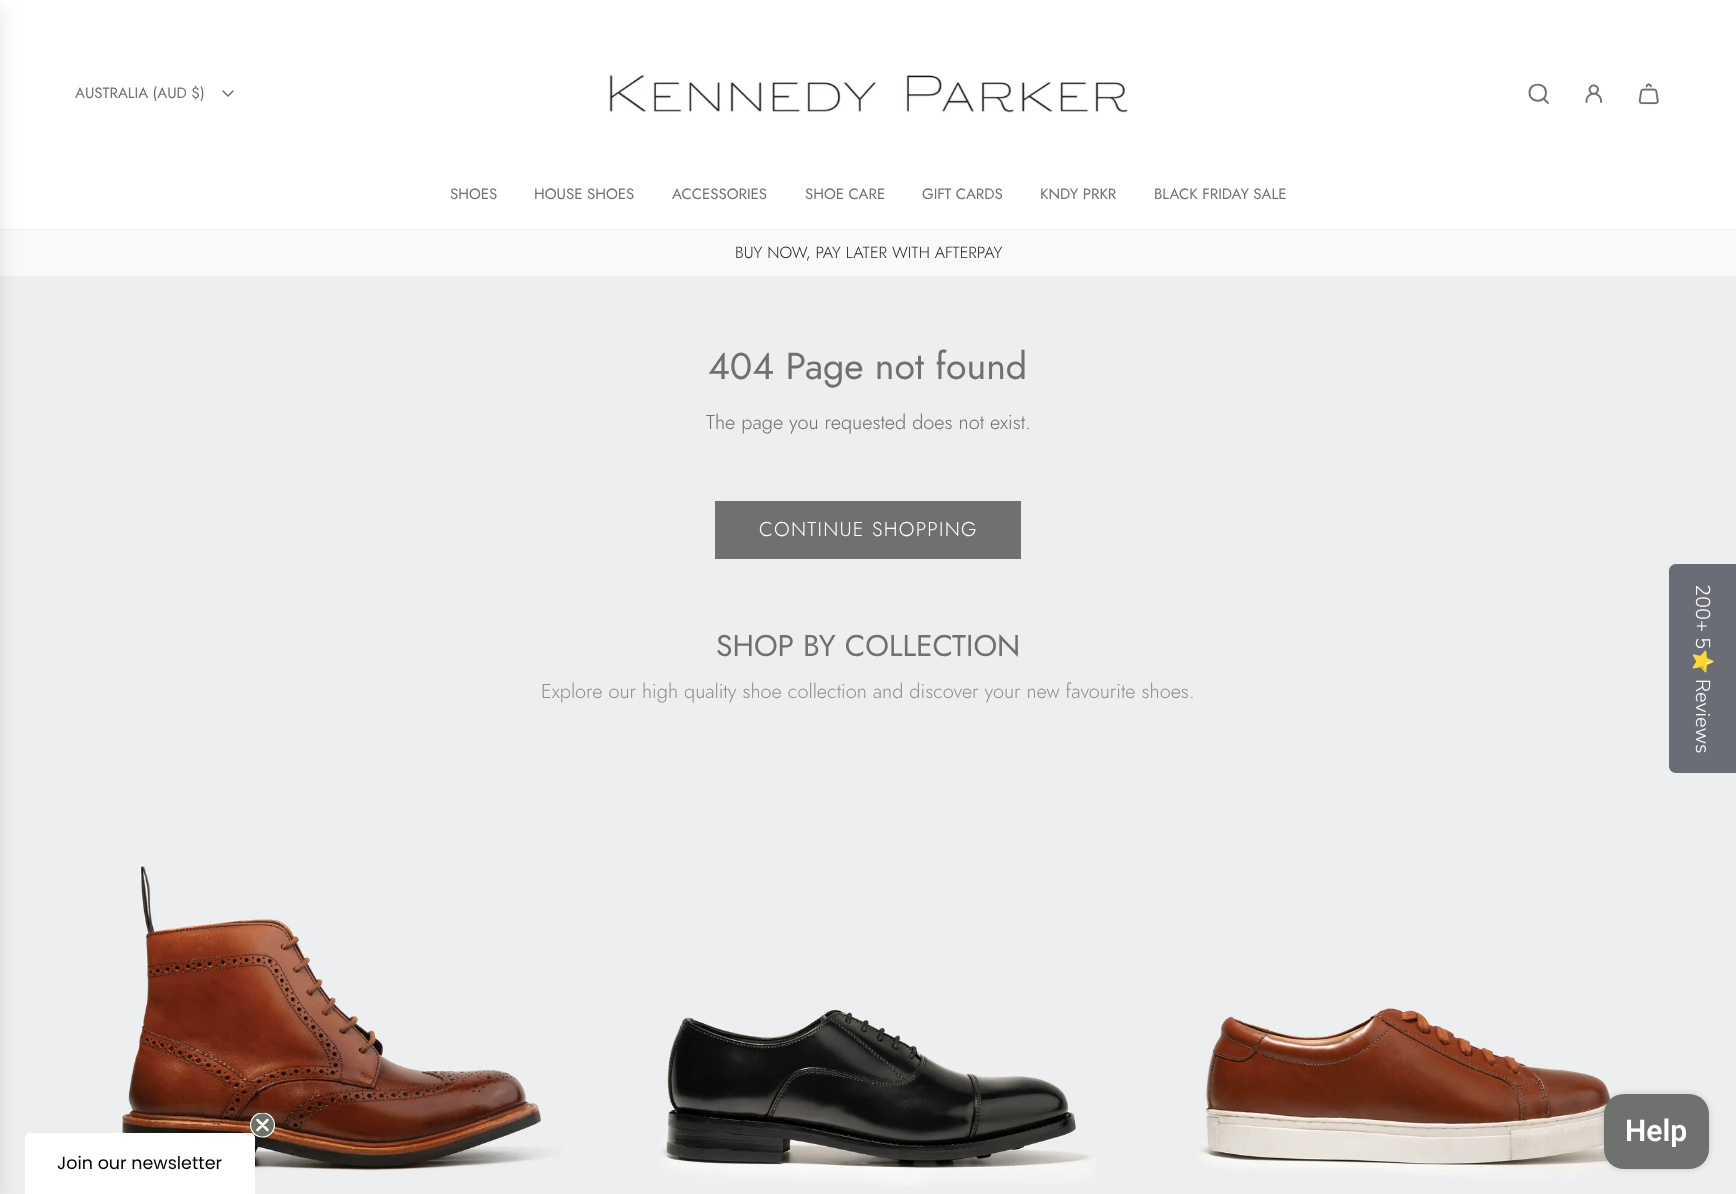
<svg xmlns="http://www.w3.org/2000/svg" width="1736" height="1194">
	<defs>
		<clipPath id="clip1"><rect x="250" y="1113" width="25" height="25" /></clipPath>
	</defs>
	<rect width="100%" height="100%" fill="#ECEEF0" />
	<rect x="0" y="0" width="1736" height="229" fill="#FFFFFF" />
	<rect x="0" y="230" width="1736" height="46" fill="#F9F9FB" />
	<rect x="-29" y="6" width="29" height="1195" fill="#000000" fill-opacity="0.1" filter="blur(9.5px)" />
	<text x="75" y="98" font-family="Jost" font-size="15" fill="#6F716E">AUSTRALIA (AUD $)</text>
	<path d="M223 91L228 96L233 91" fill="none" stroke="#6F716E" stroke-width="1.5" stroke-linecap="round" stroke-linejoin="round" />
	<image x="609" y="75" width="519" height="38" href="assets/img1.png" />
	<path d="M1544 99L1548 103M1529.5 92.5C1529.5 103.5 1546 103.5 1546 92.5C1546 82 1529.5 82 1529.5 92.5Z" fill="none" stroke="#6F716E" stroke-width="1.9" stroke-linecap="round" stroke-linejoin="round" />
	<image x="1585" y="84" width="17" height="19" href="assets/img2.png" />
	<image x="1638" y="83" width="21" height="22" href="assets/img3.png" />
	<g font-family="Jost" font-size="15" fill="#6F716E">
		<text x="450" y="199">SHOES</text>
		<text x="534" y="199">HOUSE SHOES</text>
		<text x="672" y="199">ACCESSORIES</text>
		<text x="805" y="199">SHOE CARE</text>
		<text x="922" y="199">GIFT CARDS</text>
		<text x="1040" y="199">KNDY PRKR</text>
		<text x="1154" y="199">BLACK FRIDAY SALE</text>
	</g>
	<text x="735" y="258" font-family="Jost" font-size="16.25" font-weight="300" fill="#262428">BUY NOW, PAY LATER WITH AFTERPAY</text>
	<text x="708" y="379" font-family="Jost" font-size="37.5" fill="#6F716E">404 Page not found</text>
	<text x="706" y="429" font-family="Jost" font-size="20" font-weight="300" fill="#6F716E">The page you requested does not exist.</text>
	<rect x="715" y="501" width="306" height="58" fill="#6F716E" />
	<text x="759" y="536" font-family="Jost" font-size="20" font-weight="300" letter-spacing="1.25" fill="#FFFFFF">CONTINUE SHOPPING</text>
	<text x="716" y="656" font-family="Jost" font-size="30" fill="#6F716E">SHOP BY COLLECTION</text>
	<text x="541" y="698" font-family="Jost" font-size="20" font-weight="300" fill="#8E908F">Explore our high quality shoe collection and discover your new favourite shoes.</text>
	<image x="120" y="865" width="443" height="308" href="assets/img4.png" />
	<image x="660" y="1009" width="437" height="178" href="assets/img5.png" />
	<image x="1197" y="1006" width="441" height="175" href="assets/img6.png" />
	<path d="M1736 564V773H1676C1672 773 1669 770 1669 766V571C1669 567 1672 564 1676 564Z" fill="#6B6D76" />
	<g font-family="Nunito Sans" font-size="20" font-weight="300" fill="#FFFFFF">
		<text x="1696" y="584" transform="rotate(90 1696 584)">200+</text>
		<text x="1696" y="637" transform="rotate(90 1696 637)">5</text>
	</g>
	<text x="1696" y="649" transform="rotate(90 1696 649)" font-family="Noto Color Emoji" font-size="20" fill="#FFFFFF">⭐️</text>
	<text x="1696" y="679" transform="rotate(90 1696 679)" font-family="Nunito Sans" font-size="20" font-weight="300" fill="#FFFFFF">Reviews</text>
	<rect x="1604" y="1094" width="105" height="75" rx="20" fill="#000000" fill-opacity="0.15" filter="blur(3px)" />
	<rect x="1604" y="1094" width="105" height="75" rx="20" fill="#6F716E" />
	<text x="1625" y="1141" font-family="Roboto" font-size="30" font-weight="600" fill="#FFFFFF">Help</text>
	<path d="M30 1133H250C253 1133 255 1135 255 1138V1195H25V1138C25 1135 27 1133 30 1133Z" fill="#FFFFFF" />
	<circle cx="262.5" cy="1125" r="12" fill="#6D7266" />
	<g clip-path="url(#clip1)">
		<circle cx="262.5" cy="1125" r="12" fill="none" stroke="#FFFFFF" stroke-width="1.2" />
	</g>
	<path d="M257.5 1120L267.5 1130M257.5 1130L267.5 1120Z" fill="none" stroke="#FFFFFF" stroke-width="2.5" stroke-linecap="round" stroke-linejoin="round" />
	<text x="57" y="1169" font-family="Poppins" font-size="17.5" fill="#000000">Join our newsletter</text>
</svg>
